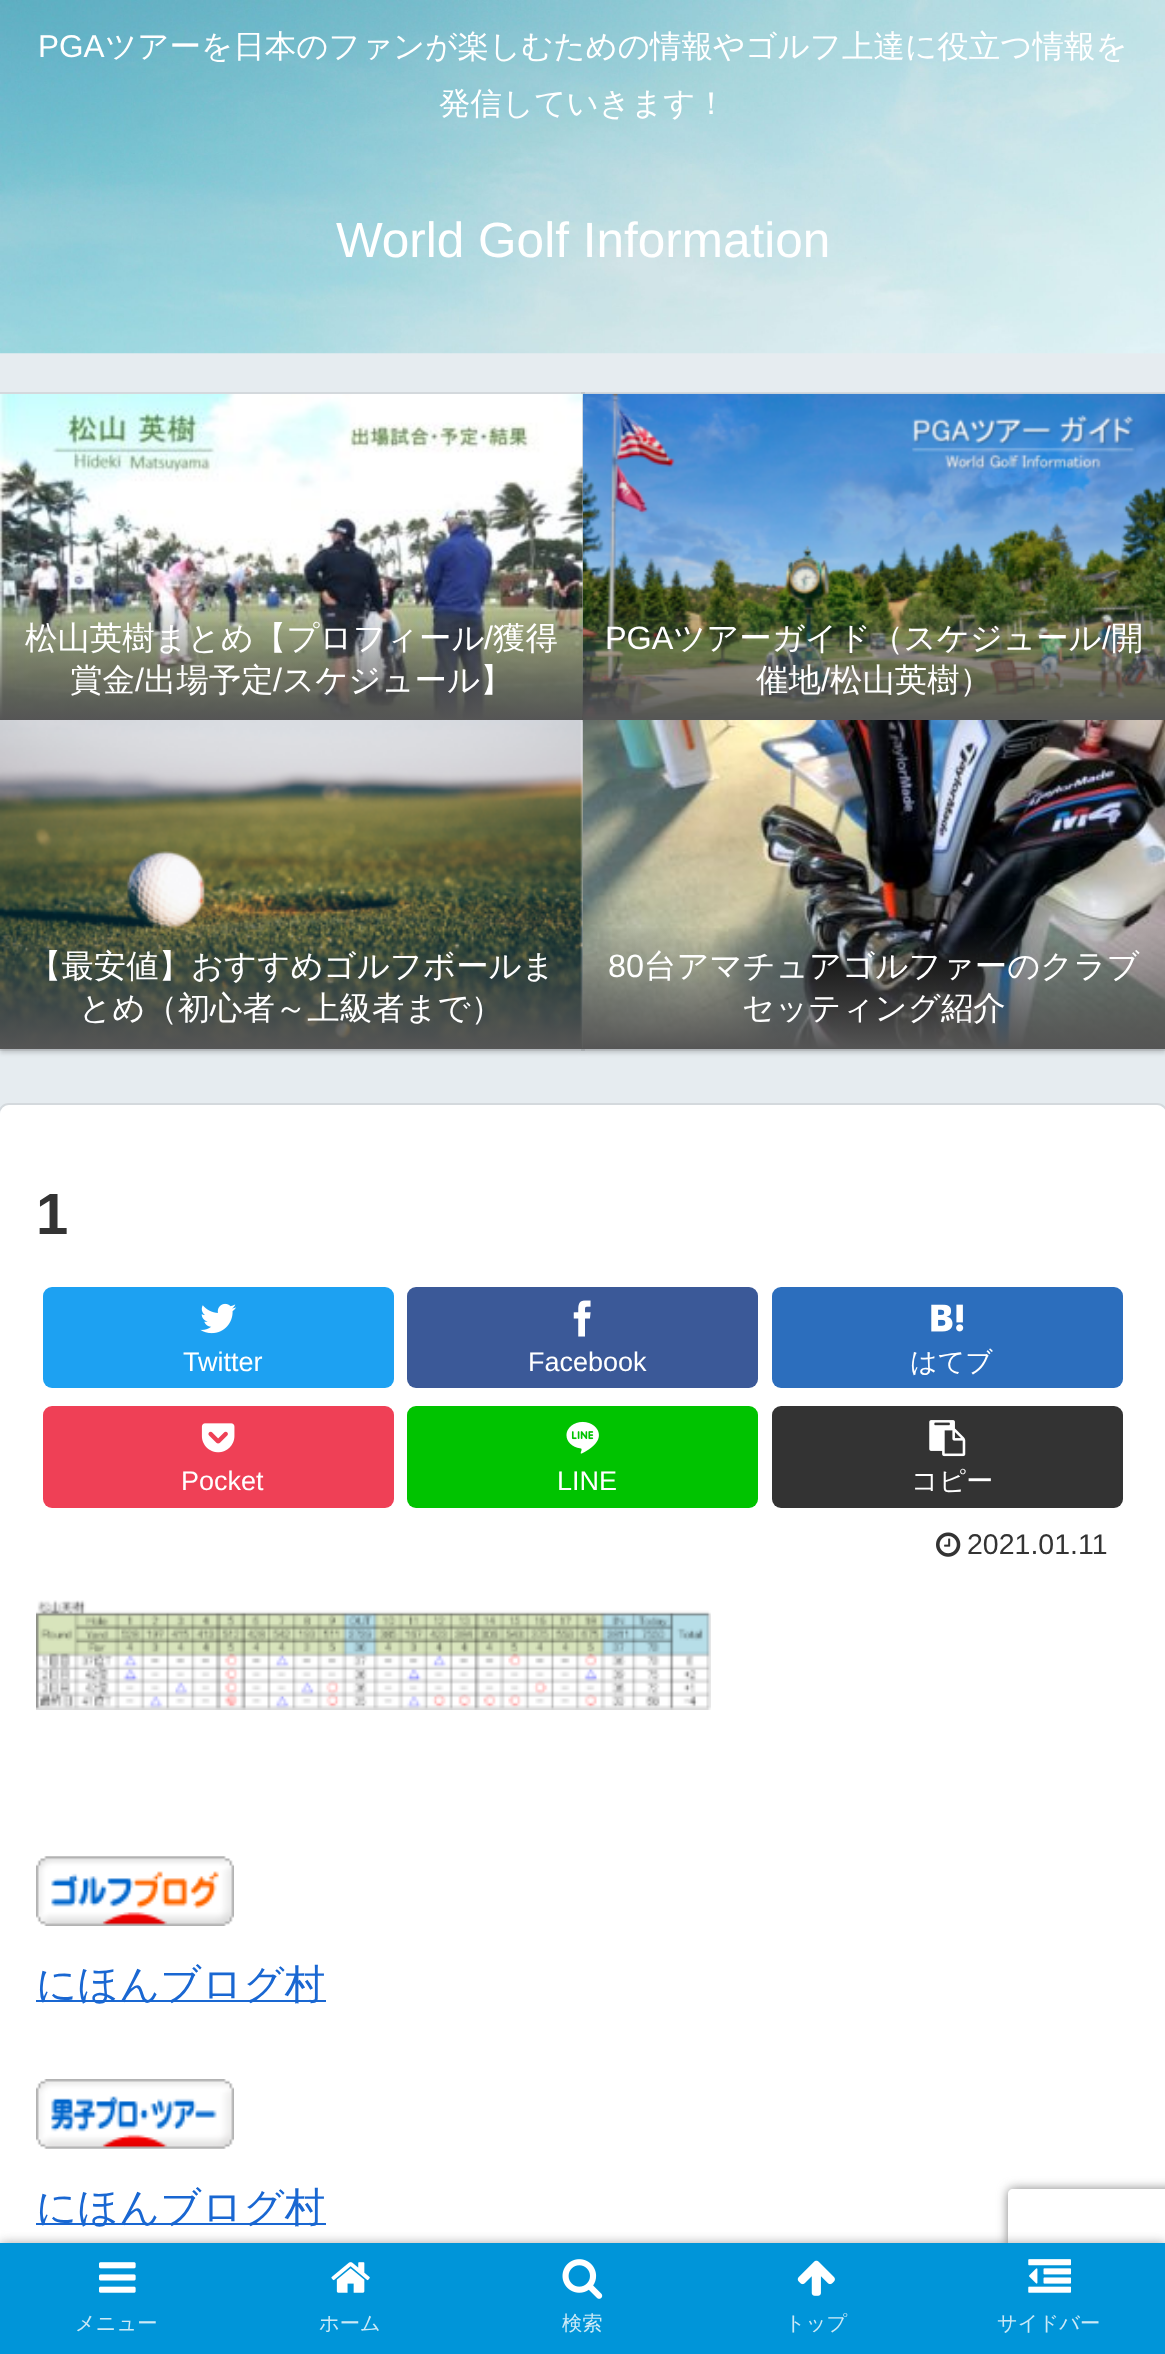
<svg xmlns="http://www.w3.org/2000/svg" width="1165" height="2354">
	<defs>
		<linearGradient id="g1" gradientUnits="userSpaceOnUse" x1="291" y1="599" x2="291" y2="720"><stop offset="0" stop-color="#555555" stop-opacity="0" /><stop offset="1" stop-color="#555555" /></linearGradient>
		<linearGradient id="g2" gradientUnits="userSpaceOnUse" x1="291" y1="925" x2="291" y2="1049"><stop offset="0" stop-color="#555555" stop-opacity="0" /><stop offset="1" stop-color="#555555" /></linearGradient>
		<linearGradient id="g3" gradientUnits="userSpaceOnUse" x1="874" y1="925" x2="874" y2="1049"><stop offset="0" stop-color="#555555" stop-opacity="0" /><stop offset="1" stop-color="#555555" /></linearGradient>
		<clipPath id="clip1"><path d="M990 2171H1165V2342H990ZM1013 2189H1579C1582 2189 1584 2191 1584 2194V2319C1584 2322 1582 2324 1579 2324H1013C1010 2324 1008 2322 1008 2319V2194C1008 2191 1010 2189 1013 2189Z" clip-rule="evenodd" /></clipPath>
	</defs>
	<rect width="100%" height="100%" fill="#E6ECF0" />
	<image x="0" y="0" width="1165" height="354" href="assets/img1.png" />
	<text x="38" y="57" font-family="Liberation Sans" font-size="31.5" fill="#FFFFFF">PGA</text>
	<g font-family="WenQuanYi Zen Hei" font-size="31.5" font-weight="500" fill="#FFFFFF">
		<text x="105" y="57">ツアーを日本のファンが楽しむための情報やゴルフ上達に役立つ情報を</text>
		<text x="439" y="114">発信していきます！</text>
	</g>
	<text x="336" y="257" font-family="Liberation Sans" font-size="49.5" fill="#FFFFFF">World Golf Information</text>
	<rect x="-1" y="393" width="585" height="328" fill="none" stroke="#D4D9DD" stroke-width="2" />
	<rect x="0" y="398" width="583" height="327" fill="#000000" fill-opacity="0.16" filter="blur(2px)" />
	<rect x="582" y="393" width="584" height="328" fill="none" stroke="#000000" stroke-opacity="0.08" stroke-width="2" />
	<rect x="583" y="398" width="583" height="327" fill="#000000" fill-opacity="0.16" filter="blur(2px)" />
	<rect x="-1" y="719" width="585" height="331" fill="none" stroke="#000000" stroke-opacity="0.08" stroke-width="2" />
	<rect x="0" y="725" width="583" height="328" fill="#000000" fill-opacity="0.16" filter="blur(2px)" />
	<rect x="582" y="719" width="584" height="331" fill="none" stroke="#000000" stroke-opacity="0.08" stroke-width="2" />
	<rect x="583" y="725" width="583" height="328" fill="#000000" fill-opacity="0.16" filter="blur(2px)" />
	<image x="0" y="394" width="583" height="325" href="assets/img2.png" />
	<rect x="0" y="602" width="583" height="118" fill="url(#g1)" />
	<text x="25" y="649" font-family="WenQuanYi Zen Hei" font-size="32.4" font-weight="500" fill="#FFFFFF">松山英樹まとめ【プロフィール</text>
	<text x="484" y="649" font-family="Liberation Sans" font-size="32.4" fill="#FFFFFF">/</text>
	<g font-family="WenQuanYi Zen Hei" font-size="32.4" font-weight="500" fill="#FFFFFF">
		<text x="493" y="649">獲得</text>
		<text x="70" y="691">賞金</text>
	</g>
	<text x="135" y="691" font-family="Liberation Sans" font-size="32.4" fill="#FFFFFF">/</text>
	<text x="144" y="691" font-family="WenQuanYi Zen Hei" font-size="32.4" font-weight="500" fill="#FFFFFF">出場予定</text>
	<text x="273" y="691" font-family="Liberation Sans" font-size="32.4" fill="#FFFFFF">/</text>
	<text x="282" y="691" font-family="WenQuanYi Zen Hei" font-size="32.4" font-weight="500" fill="#FFFFFF">スケジュール】</text>
	<image x="582" y="393" width="583" height="327" href="assets/img3.png" />
	<text x="605" y="649" font-family="Liberation Sans" font-size="32.4" fill="#FFFFFF">PGA</text>
	<text x="673" y="649" font-family="WenQuanYi Zen Hei" font-size="32.4" font-weight="500" fill="#FFFFFF">ツアーガイド（スケジュール</text>
	<text x="1102" y="649" font-family="Liberation Sans" font-size="32.4" fill="#FFFFFF">/</text>
	<g font-family="WenQuanYi Zen Hei" font-size="32.4" font-weight="500" fill="#FFFFFF">
		<text x="1111" y="649">開</text>
		<text x="756" y="691">催地</text>
	</g>
	<text x="821" y="691" font-family="Liberation Sans" font-size="32.4" fill="#FFFFFF">/</text>
	<text x="830" y="691" font-family="WenQuanYi Zen Hei" font-size="32.4" font-weight="500" fill="#FFFFFF">松山英樹）</text>
	<image x="0" y="720" width="583" height="328" href="assets/img4.png" />
	<rect x="0" y="930" width="583" height="119" fill="url(#g2)" />
	<g font-family="WenQuanYi Zen Hei" font-size="32.4" font-weight="500" fill="#FFFFFF">
		<text x="29" y="977">【最安値】おすすめゴルフボールま</text>
		<text x="79" y="1019">とめ（初心者～上級者まで）</text>
	</g>
	<image x="582" y="720" width="583" height="328" href="assets/img5.png" />
	<rect x="583" y="928" width="582" height="121" fill="url(#g3)" />
	<text x="608" y="977" font-family="Liberation Sans" font-size="32.4" fill="#FFFFFF">80</text>
	<g font-family="WenQuanYi Zen Hei" font-size="32.4" font-weight="500" fill="#FFFFFF">
		<text x="644" y="977">台アマチュアゴルファーのクラブ</text>
		<text x="742" y="1019">セッティング紹介</text>
	</g>
	<rect x="-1" y="1104" width="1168" height="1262" rx="10" fill="none" stroke="#D4D9DD" stroke-width="2" />
	<rect x="0" y="1105" width="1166" height="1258" rx="9" fill="#FFFFFF" />
	<text x="36" y="1234" font-family="Liberation Sans" font-size="58" font-weight="700" fill="#333333">1</text>
	<rect x="43" y="1287" width="351" height="101" rx="9" fill="#1DA1F2" />
	<image x="200" y="1303" width="37" height="31" href="assets/img6.png" />
	<text x="183" y="1371" font-family="Liberation Sans" font-size="27" fill="#FFFFFF">Twitter</text>
	<rect x="407" y="1287" width="351" height="101" rx="9" fill="#3B5998" />
	<image x="573" y="1300" width="18" height="37" href="assets/img7.png" />
	<text x="528" y="1371" font-family="Liberation Sans" font-size="27" fill="#FFFFFF">Facebook</text>
	<rect x="772" y="1287" width="351" height="101" rx="9" fill="#2C6EBD" />
	<image x="931" y="1304" width="33" height="28" href="assets/img8.png" />
	<text x="910" y="1371" font-family="WenQuanYi Zen Hei" font-size="27" font-weight="500" fill="#FFFFFF">はてブ</text>
	<rect x="43" y="1406" width="351" height="102" rx="9" fill="#EF4056" />
	<image x="201" y="1423" width="34" height="30" href="assets/img9.png" />
	<text x="181" y="1490" font-family="Liberation Sans" font-size="27" fill="#FFFFFF">Pocket</text>
	<rect x="407" y="1406" width="351" height="102" rx="9" fill="#00C300" />
	<image x="566" y="1421" width="33" height="33" href="assets/img10.png" />
	<text x="557" y="1490" font-family="Liberation Sans" font-size="27" fill="#FFFFFF">LINE</text>
	<rect x="772" y="1406" width="351" height="102" rx="9" fill="#333333" />
	<image x="929" y="1420" width="37" height="37" href="assets/img11.png" />
	<text x="911" y="1490" font-family="WenQuanYi Zen Hei" font-size="27" font-weight="500" fill="#FFFFFF">コピー</text>
	<image x="936" y="1532" width="25" height="25" href="assets/img12.png" />
	<text x="967" y="1554" font-family="Liberation Sans" font-size="28.5" fill="#333333">2021.01.11</text>
	<image x="36" y="1600" width="675" height="110" href="assets/img13.png" />
	<image x="36" y="1856" width="198" height="70" href="assets/img14.png" />
	<rect x="36" y="2000" width="290" height="2" fill="#1967D2" />
	<text x="36" y="1998" font-family="WenQuanYi Zen Hei" font-size="40.5" font-weight="500" fill="#1967D2">にほんブログ村</text>
	<image x="36" y="2079" width="198" height="70" href="assets/img15.png" />
	<rect x="36" y="2223" width="290" height="2" fill="#1967D2" />
	<text x="36" y="2221" font-family="WenQuanYi Zen Hei" font-size="40.5" font-weight="500" fill="#1967D2">にほんブログ村</text>
	<rect x="0" y="2243" width="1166" height="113" fill="#A9A9A9" filter="blur(5.5px)" />
	<g clip-path="url(#clip1)">
		<rect x="1008" y="2189" width="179" height="135" rx="5" fill="#808080" filter="blur(5.5px)" />
	</g>
	<rect x="0" y="2243" width="1165" height="111" fill="#0095D9" />
	<image x="99" y="2262" width="37" height="31" href="assets/img16.png" />
	<text x="75" y="2330" font-family="WenQuanYi Zen Hei" font-size="20.25" font-weight="500" fill="#CCEAF7">メニュー</text>
	<image x="331" y="2262" width="39" height="31" href="assets/img17.png" />
	<text x="319" y="2330" font-family="WenQuanYi Zen Hei" font-size="20.25" font-weight="500" fill="#CCEAF7">ホーム</text>
	<image x="562" y="2259" width="41" height="40" href="assets/img18.png" />
	<text x="562" y="2330" font-family="WenQuanYi Zen Hei" font-size="20.25" font-weight="500" fill="#CCEAF7">検索</text>
	<image x="797" y="2260" width="38" height="36" href="assets/img19.png" />
	<text x="785" y="2330" font-family="WenQuanYi Zen Hei" font-size="20.25" font-weight="500" fill="#CCEAF7">トップ</text>
	<image x="1028" y="2259" width="43" height="34" href="assets/img20.png" />
	<text x="997" y="2330" font-family="WenQuanYi Zen Hei" font-size="20.25" font-weight="500" fill="#CCEAF7">サイドバー</text>
</svg>
